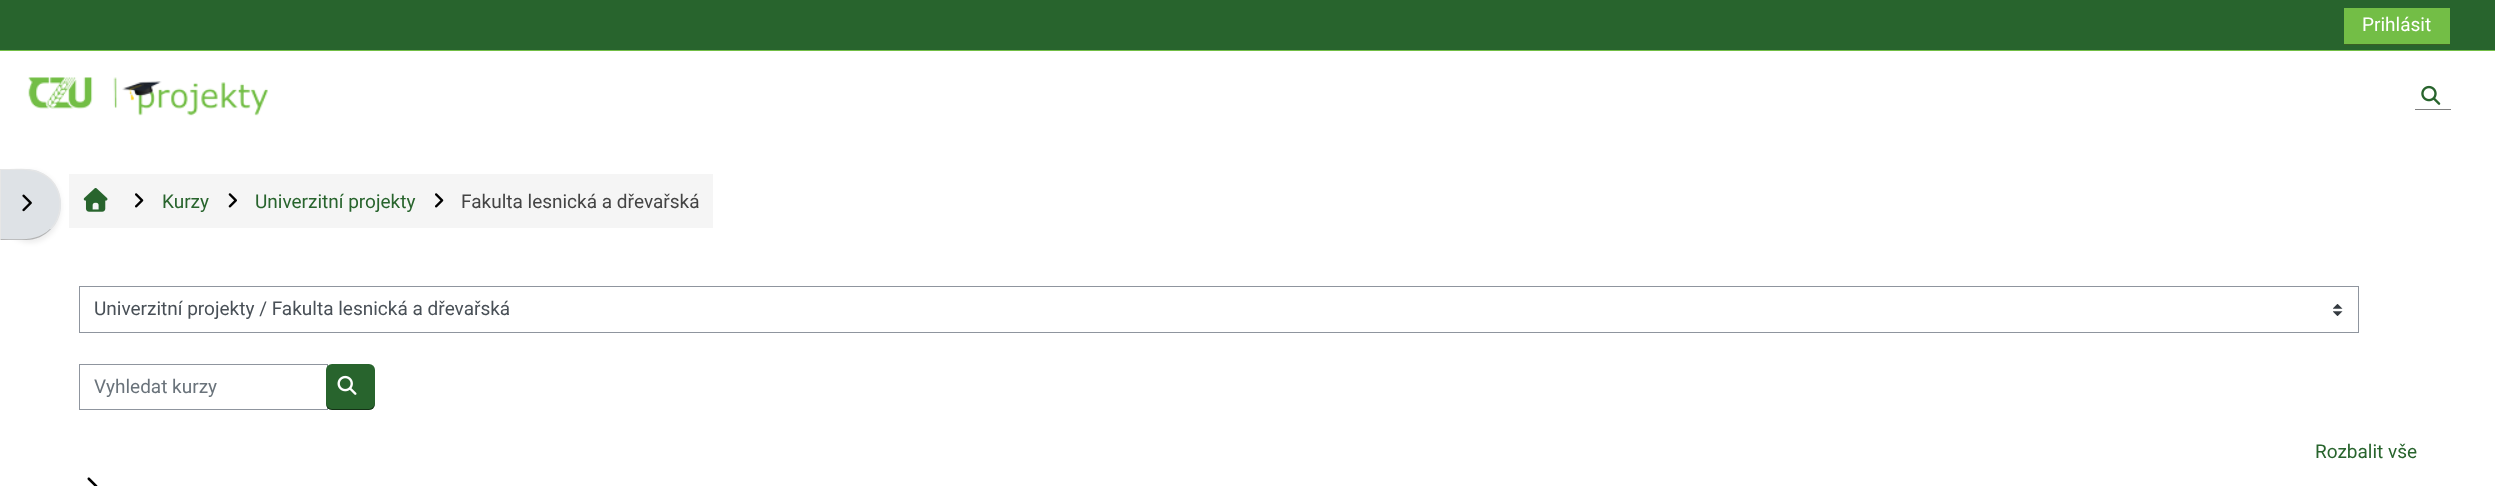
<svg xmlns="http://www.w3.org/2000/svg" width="2495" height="486">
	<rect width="100%" height="100%" fill="#FFFFFF" />
	<rect x="0" y="0" width="2495" height="50" fill="#28642D" />
	<rect x="0" y="50" width="2495" height="1" fill="#73BE46" />
	<rect x="2344" y="8" width="106" height="36" fill="#73BE46" />
	<rect x="2344" y="44" width="106" height="1" fill="#3A5F23" />
	<text x="2362" y="31" font-family="Roboto" font-size="19" fill="#FFFFFF">Prihlásit</text>
	<image x="28" y="77" width="240" height="39" href="assets/img1.png" />
	<rect x="2415" y="109" width="36" height="1" fill="#808080" />
	<image x="2421" y="85" width="20" height="20" href="assets/img2.png" />
	<rect x="69" y="174" width="644" height="54" fill="#F5F5F5" />
	<rect x="0" y="171" width="61" height="72" rx="35" fill="#000000" fill-opacity="0.07" filter="blur(2.5px)" />
	<path d="M0 169H26C45.5 169 61 184.5 61 204V205C61 224.5 45.5 240 26 240H0Z" fill="#DEE2E6" />
	<path d="M51 179C37 166 18 169 0 169L1 170C18 170 37 167 50 180Z" fill="#E6E6E6" />
	<path d="M51 179C64 193 64 216 51 229H50C63 215 63 193 50 180Z" fill="#E6E6E6" />
	<path d="M26 240C36 240 44 236 51 229H50C37 242 18 239 1 239L0 240Z" fill="#B3B3B3" />
	<path d="M1 170L0 169V240L1 239Z" fill="#E6E6E6" />
	<image x="22" y="194" width="10" height="18" href="assets/img3.png" />
	<image x="83" y="188" width="25" height="24" href="assets/img4.png" />
	<image x="135" y="193" width="9" height="15" href="assets/img5.png" />
	<text x="162" y="208" font-family="Roboto" font-size="19" fill="#28642D">Kurzy</text>
	<image x="228" y="193" width="9" height="15" href="assets/img6.png" />
	<text x="255" y="208" font-family="Roboto" font-size="19" fill="#28642D">Univerzitní projekty</text>
	<image x="435" y="193" width="9" height="15" href="assets/img5.png" />
	<text x="461" y="208" font-family="Roboto" font-size="19" fill="#444444">Fakulta lesnická a dřevařská</text>
	<image x="2333" y="304" width="10" height="12" href="assets/img7.png" />
	<rect x="79.5" y="286.5" width="2279" height="46" fill="none" stroke="#8F959E" />
	<text x="94" y="315" font-family="Roboto" font-size="19" fill="#495057">Univerzitní projekty / Fakulta lesnická a dřevařská</text>
	<rect x="79.5" y="364.5" width="248" height="45" fill="none" stroke="#8F959E" />
	<text x="94" y="393" font-family="Roboto" font-size="19" fill="#6A737B">Vyhledat kurzy</text>
	<rect x="326" y="364" width="49" height="46" rx="6" fill="#28642D" />
	<path d="M326 402C326 411 331 410 338 410H363C370 410 375 411 375 402C375 406 372 409 369 409H332C329 409 326 406 326 402Z" fill="#000000" fill-opacity="0.5" />
	<image x="337" y="375" width="20" height="20" href="assets/img8.png" />
	<text x="2315" y="458" font-family="Roboto" font-size="19" fill="#28642D">Rozbalit vše</text>
	<image x="87" y="477" width="11" height="9" href="assets/img9.png" />
</svg>
